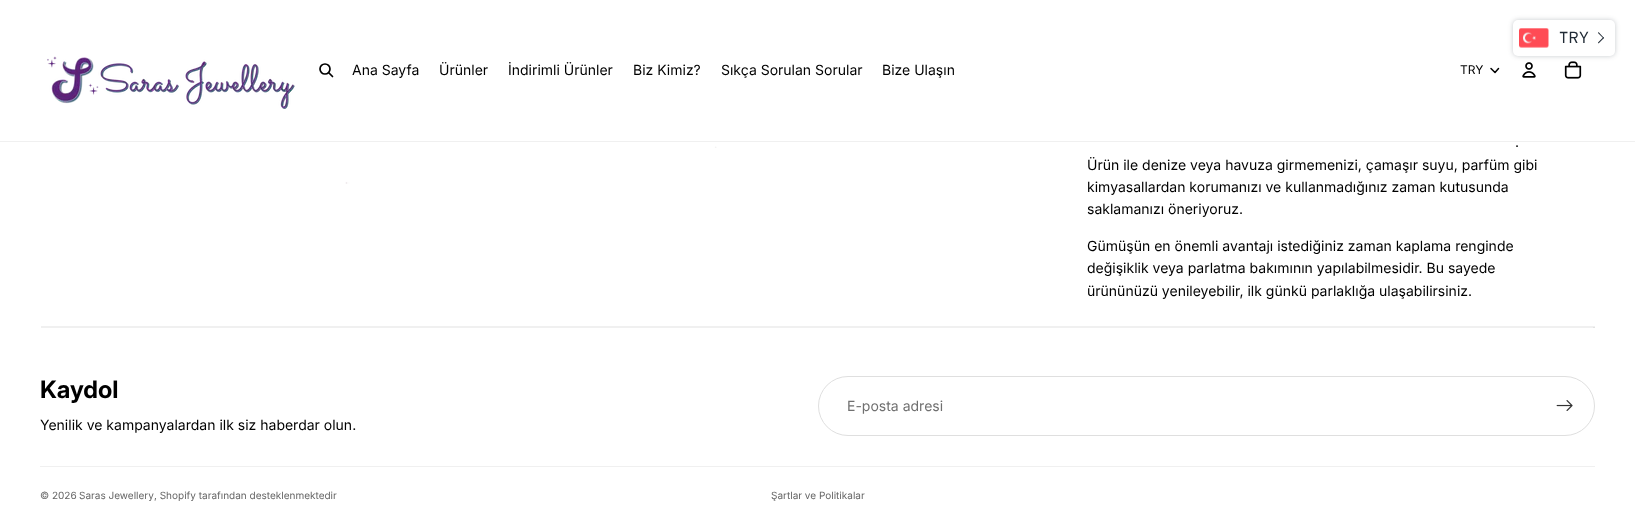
<svg xmlns="http://www.w3.org/2000/svg" width="1635" height="523">
	<rect width="100%" height="100%" fill="#FFFFFF" />
	<rect x="41" y="326" width="1554" height="2" fill="#F0F0F0" />
	<image x="1522" y="62" width="14" height="16" href="assets/img3.png" />
	<image x="1564" y="61" width="18" height="18" href="assets/img4.png" />
	<rect x="1513" y="20" width="102" height="36" rx="5" fill="#212B36" fill-opacity="0.25" filter="blur(2.5px)" />
	<rect x="1513" y="20" width="102" height="36" rx="5" fill="#FFFFFF" />
	<image x="1519" y="28" width="30" height="20" href="assets/img1.png" />
	<text x="1559" y="43" font-family="Overpass" font-size="16" fill="#212B36">TRY</text>
	<path d="M1598 33L1598.5 32L1604 38L1603.5 38.5Z" fill="#212B36" />
	<path d="M1598 42.5L1603.5 37L1604 38L1598.5 43.5Z" fill="#212B36" />
	<rect x="0" y="141" width="1635" height="1" fill="#F0F0F0" />
	<image x="47" y="56" width="248" height="53" href="assets/img2.png" />
	<circle cx="325" cy="69" r="5" fill="none" stroke="#000000" stroke-width="1.7" />
	<path d="M329 73L332.5 76.5" fill="none" stroke="#000000" stroke-width="1.7" stroke-linecap="round" stroke-linejoin="round" />
	<g font-family="Inter" font-size="14" fill="#000000">
		<text x="352" y="75">Ana Sayfa</text>
		<text x="439" y="75">Ürünler</text>
		<text x="508" y="75">İndirimli Ürünler</text>
		<text x="633" y="75">Biz Kimiz?</text>
		<text x="721" y="75">Sıkça Sorulan Sorular</text>
		<text x="882" y="75">Bize Ulaşın</text>
	</g>
	<text x="1460" y="74" font-family="Inter" font-size="12" fill="#000000">TRY</text>
	<path d="M1498.5 68.5L1495 72.5L1491 68.5" fill="none" stroke="#000000" stroke-width="1.5" stroke-linecap="round" stroke-linejoin="round" />
	<image x="345" y="142" width="372" height="42" href="assets/img5.png" />
	<g font-family="Inter" font-size="14" fill="#000000">
		<text x="1515" y="147">.</text>
		<text x="1087" y="170">Ürün ile denize veya havuza girmemenizi, çamaşır suyu, parfüm gibi</text>
		<text x="1087" y="192">kimyasallardan korumanızı ve kullanmadığınız zaman kutusunda</text>
		<text x="1087" y="214">saklamanızı öneriyoruz.</text>
		<text x="1087" y="251">Gümüşün en önemli avantajı istediğiniz zaman kaplama renginde</text>
		<text x="1087" y="273">değişiklik veya parlatma bakımının yapılabilmesidir. Bu sayede</text>
		<text x="1087" y="296">ürününüzü yenileyebilir, ilk günkü parlaklığa ulaşabilirsiniz.</text>
	</g>
	<rect x="1593" y="327" width="2" height="1" fill="#E2E2E2" />
	<text x="40" y="398" font-family="Inter" font-size="24" font-weight="700" fill="#000000">Kaydol</text>
	<text x="40" y="430" font-family="Inter" font-size="14" fill="#000000">Yenilik ve kampanyalardan ilk siz haberdar olun.</text>
	<rect x="818.5" y="376.5" width="776" height="59" rx="29.5" fill="none" stroke="#DFDFDF" />
	<text x="847" y="411" font-family="Inter" font-size="14" fill="#707070">E-posta adresi</text>
	<image x="1556" y="400" width="17" height="11" href="assets/img6.png" />
	<rect x="40" y="466" width="1555" height="1" fill="#F0F0F0" />
	<g font-family="Inter" font-size="10" fill="#666666">
		<text x="40" y="499">© 2026</text>
		<text x="79" y="499">Saras Jewellery</text>
		<text x="154" y="499">, Shopify tarafından desteklenmektedir</text>
		<text x="771" y="499">Şartlar ve Politikalar</text>
	</g>
</svg>
